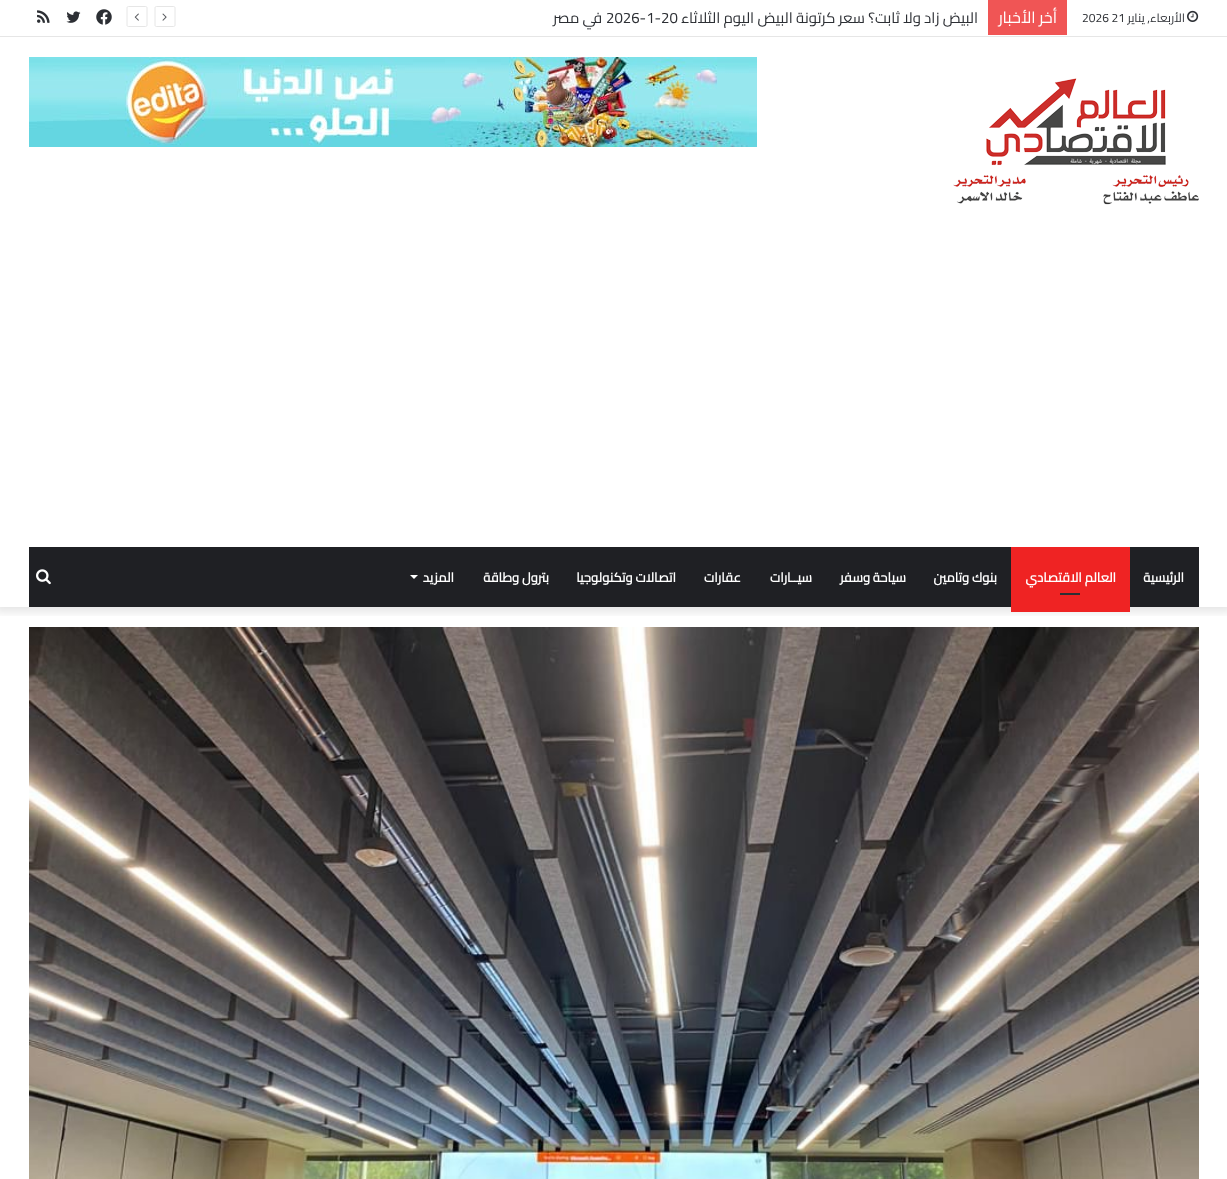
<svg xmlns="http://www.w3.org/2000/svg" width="1227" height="1179">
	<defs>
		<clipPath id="clip1"><rect x="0" y="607" width="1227" height="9" /></clipPath>
	</defs>
	<rect width="100%" height="100%" fill="#FFFFFF" />
	<image x="29" y="627" width="1170" height="552" href="assets/img10.png" />
	<g clip-path="url(#clip1)">
		<rect x="-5" y="-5" width="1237" height="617" fill="#000000" fill-opacity="0.1" filter="blur(5px)" />
	</g>
	<rect x="0" y="36" width="1227" height="1" fill="#E6E6E6" />
	<image x="1187" y="10" width="12" height="12" href="assets/img1.png" />
	<text x="1185" y="22" font-family="Cairo" font-size="12" direction="rtl" fill="#2C2F34">الأربعاء, يناير</text>
	<text x="1082" y="22" font-family="Cairo" font-size="12" fill="#2C2F34">2026 21</text>
	<rect x="988" y="0" width="79" height="35" fill="#F05555" />
	<text x="1057" y="23" font-family="Cairo" font-size="16" direction="rtl" fill="#FFFFFF">أخر الأخبار</text>
	<text x="978" y="23" font-family="Cairo" font-size="15" direction="rtl" fill="#2C2F34">البيض زاد ولا ثابت؟ سعر كرتونة البيض اليوم الثلاثاء</text>
	<text x="606" y="23" font-family="Cairo" font-size="15" fill="#2C2F34">2026-1-20</text>
	<text x="602" y="23" font-family="Cairo" font-size="15" direction="rtl" fill="#2C2F34">في مصر</text>
	<path d="M173.5 26.5H156.5C155.5 26.5 155 26 155 25V8C155 7 155.5 6.5 156.5 6.5H173.5C174.5 6.5 175 7 175 8V25C175 26 174.5 26.5 173.5 26.5Z" fill="none" stroke="#E6E6E6" />
	<image x="162" y="13" width="5" height="8" href="assets/img2.png" />
	<path d="M145.5 26.5H128.5C127.5 26.5 127 26 127 25V8C127 7 127.5 6.5 128.5 6.5H145.5C146.5 6.5 147 7 147 8V25C147 26 146.5 26.5 145.5 26.5Z" fill="none" stroke="#E6E6E6" />
	<image x="134" y="13" width="5" height="8" href="assets/img3.png" />
	<image x="96" y="9" width="16" height="16" href="assets/img4.png" />
	<image x="66" y="11" width="15" height="12" href="assets/img5.png" />
	<image x="37" y="10" width="13" height="13" href="assets/img6.png" />
	<image x="953" y="78" width="246" height="127" href="assets/img7.png" />
	<image x="29" y="57" width="728" height="90" href="assets/img8.png" />
	<rect x="29" y="547" width="1170" height="60" fill="#1F2024" />
	<text x="1184" y="582" font-family="Cairo" font-size="13" font-weight="700" direction="rtl" fill="#FFFFFF">الرئيسية</text>
	<rect x="1011" y="547" width="119" height="65" fill="#EF2323" />
	<text x="1116" y="582" font-family="Cairo" font-size="13" font-weight="700" direction="rtl" fill="#FFFFFF">العالم الاقتصادي</text>
	<rect x="1060" y="593" width="20" height="2" fill="#2C2F34" />
	<g font-family="Cairo" font-size="13" font-weight="700" direction="rtl" fill="#FFFFFF">
		<text x="997" y="582">بنوك وتامين</text>
		<text x="906" y="582">سياحة وسفر</text>
		<text x="812" y="582">سيــارات</text>
		<text x="741" y="582">عقارات</text>
		<text x="676" y="582">اتصالات وتكنولوجيا</text>
		<text x="549" y="582">بترول وطاقة</text>
		<text x="454" y="582">المزيد</text>
	</g>
	<path d="M410 575H418L414 579Z" fill="#FFFFFF" />
	<image x="36" y="569" width="15" height="16" href="assets/img9.png" />
</svg>
